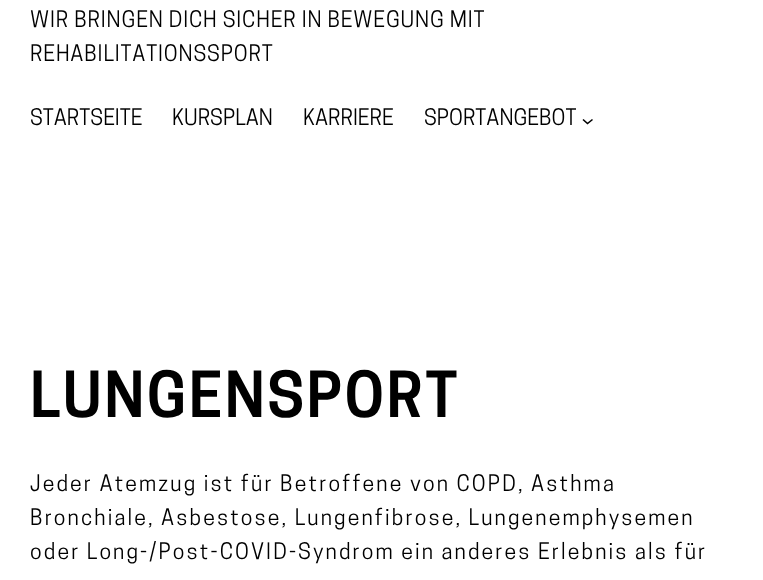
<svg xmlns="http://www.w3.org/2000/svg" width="763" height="580">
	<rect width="100%" height="100%" fill="#FFFFFF" />
	<g font-family="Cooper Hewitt" font-size="21.35" letter-spacing="0.85" fill="#000000">
		<text x="30" y="27">WIR BRINGEN DICH SICHER IN BEWEGUNG MIT</text>
		<text x="30" y="61">REHABILITATIONSSPORT</text>
	</g>
	<g font-family="Cooper Hewitt" font-size="21.35" fill="#000000">
		<text x="30" y="125">STARTSEITE</text>
		<text x="172" y="125">KURSPLAN</text>
		<text x="303" y="125">KARRIERE</text>
		<text x="424" y="125">SPORTANGEBOT</text>
	</g>
	<path d="M583 119.5L587.5 123.5L592.5 119.5" fill="none" stroke="#000000" stroke-width="1.6" />
	<text x="30" y="417" font-family="Cooper Hewitt" font-size="59.5" font-weight="600" letter-spacing="2.4" fill="#000000">LUNGENSPORT</text>
	<g font-family="Cooper Hewitt" font-size="21.35" letter-spacing="2.13" fill="#000000">
		<text x="30" y="491">Jeder Atemzug ist für Betroffene von COPD, Asthma</text>
		<text x="30" y="525">Bronchiale, Asbestose, Lungenfibrose, Lungenemphysemen</text>
		<text x="30" y="559">oder Long-/Post-COVID-Syndrom ein anderes Erlebnis als für</text>
	</g>
</svg>
